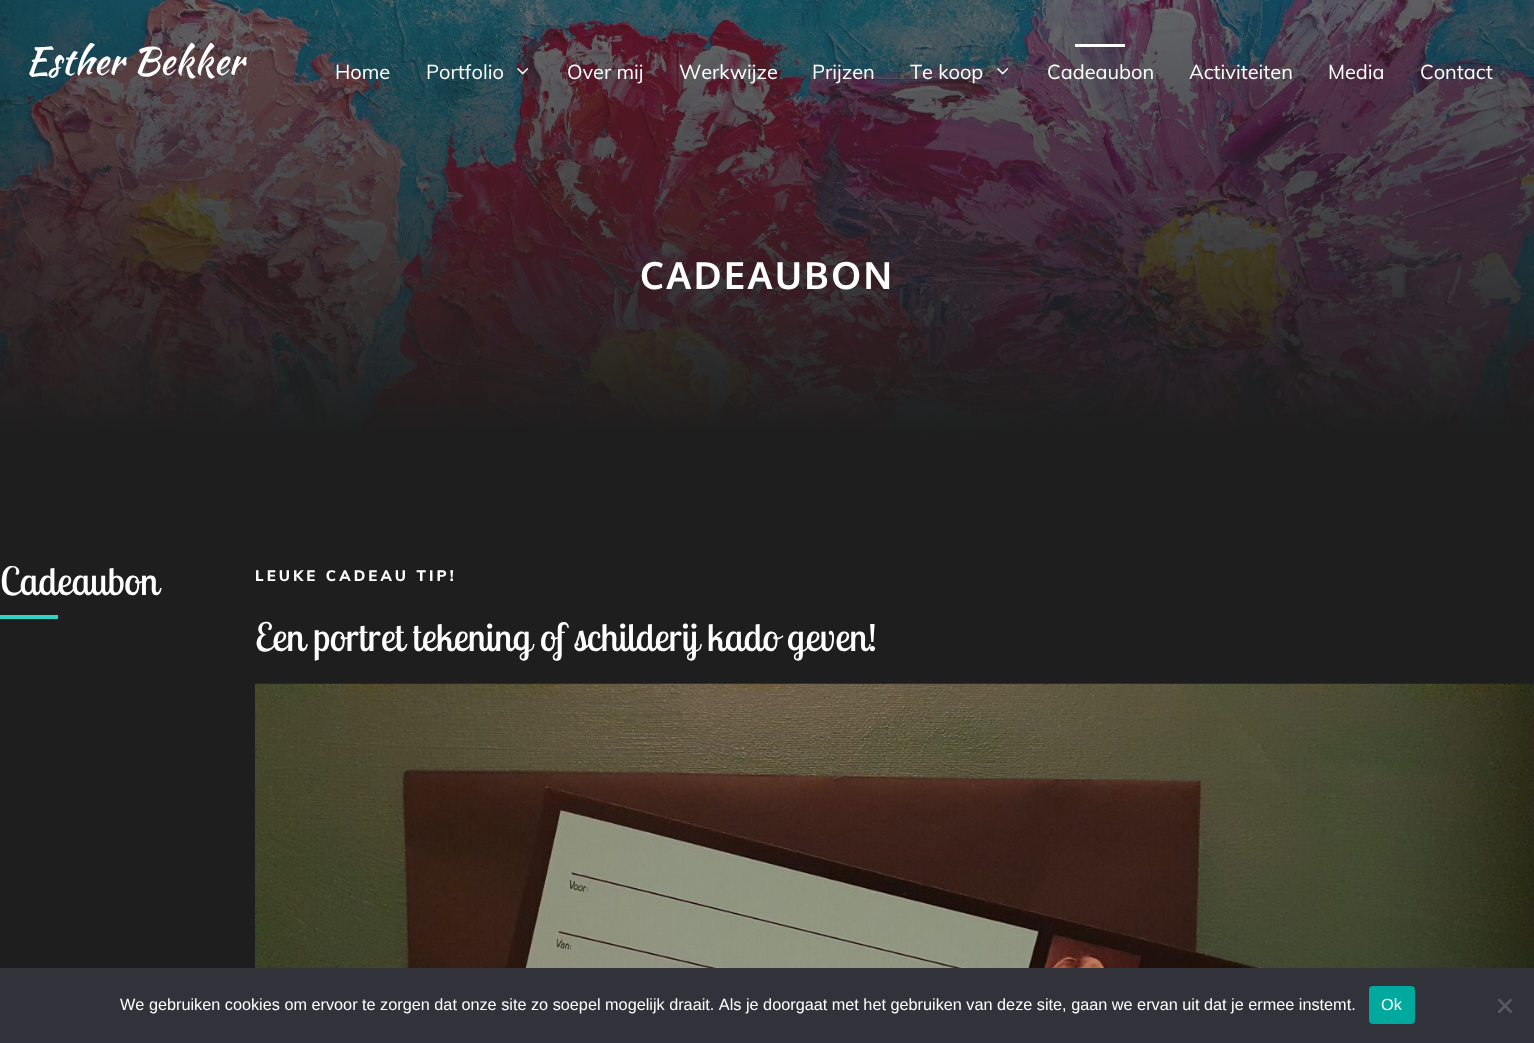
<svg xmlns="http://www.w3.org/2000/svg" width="1534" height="1043">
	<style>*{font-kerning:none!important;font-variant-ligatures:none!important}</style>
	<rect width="100%" height="100%" fill="#FFFFFF" />
	<image x="0" y="0" width="1534" height="436" href="assets/img3.png" />
	<text x="25" y="74" font-family="Kaushan Script" font-size="37.5" fill="#FFFFFF">Esther Bekker</text>
	<g font-family="Muli" font-size="20" fill="#FFFFFF">
		<text x="335" y="79">Home</text>
		<text x="426" y="79">Portfolio</text>
	</g>
	<image x="517" y="68" width="12" height="7" href="assets/img1.png" />
	<g font-family="Muli" font-size="20" fill="#FFFFFF">
		<text x="567" y="79">Over mij</text>
		<text x="679" y="79">Werkwijze</text>
		<text x="812" y="79">Prijzen</text>
		<text x="910" y="79">Te koop</text>
	</g>
	<image x="997" y="68" width="12" height="7" href="assets/img2.png" />
	<rect x="1075" y="44" width="50" height="3" fill="#FFFFFF" />
	<g font-family="Muli" font-size="20" fill="#FFFFFF">
		<text x="1047" y="79">Cadeaubon</text>
		<text x="1189" y="79">Activiteiten</text>
		<text x="1328" y="79">Media</text>
		<text x="1420" y="79">Contact</text>
	</g>
	<text x="640" y="289" font-family="Oxygen" font-size="37.5" font-weight="700" letter-spacing="2.5" fill="#FFFFFF">CADEAUBON</text>
	<rect x="0" y="436" width="1534" height="532" fill="#1E1E1E" />
	<text x="0" y="595" font-family="Lobster Two" font-size="38.75" fill="#FFFFFF">Cadeaubon</text>
	<rect x="0" y="615" width="58" height="4" fill="#2DD3C7" />
	<text x="255" y="581" font-family="Muli" font-size="15" font-weight="800" letter-spacing="3.1" fill="#FFFFFF">LEUKE CADEAU TIP!</text>
	<text x="255" y="651" font-family="Lobster Two" font-size="38.75" fill="#FFFFFF">Een portret tekening of schilderij kado geven!</text>
	<image x="255" y="683" width="1279" height="285" href="assets/img4.png" />
	<rect x="0" y="968" width="1534" height="75" fill="#32323A" />
	<text x="120" y="1010" font-family="Liberation Sans" font-size="16.25" fill="#FFFFFF">We gebruiken cookies om ervoor te zorgen dat onze site zo soepel mogelijk draait. Als je doorgaat met het gebruiken van deze site, gaan we ervan uit dat je ermee instemt.</text>
	<rect x="1369" y="986" width="46" height="38" rx="4" fill="#00A99D" />
	<text x="1381" y="1010" font-family="Liberation Sans" font-size="16.25" fill="#FFFFFF">Ok</text>
	<path d="M1510.5 998.5L1512.5 1000L1499.5 1013.5L1497.5 1011.5Z" fill="#59595D" />
	<path d="M1497.5 1000L1499.5 998.5L1512.5 1011.5L1510.5 1013.5Z" fill="#59595D" />
</svg>
